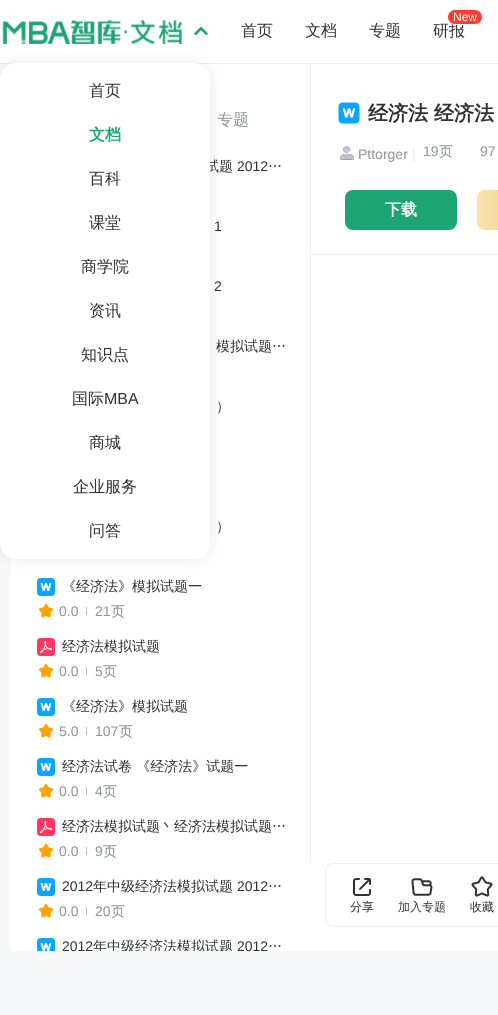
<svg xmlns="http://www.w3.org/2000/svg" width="498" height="1015">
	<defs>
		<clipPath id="clip1"><rect x="62" y="938" width="230" height="13" /></clipPath>
		<linearGradient id="g1" gradientUnits="userSpaceOnUse" x1="477" y1="210" x2="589" y2="210"><stop offset="0" stop-color="#F7E4AD" /><stop offset="1" stop-color="#E5B85F" /></linearGradient>
	</defs>
	<rect width="100%" height="100%" fill="#F7F8FA" />
	<rect x="0" y="0" width="498" height="63" fill="#FFFFFF" />
	<rect x="0" y="63" width="498" height="1" fill="#EDEFF2" />
	<g font-family="WenQuanYi Zen Hei" font-size="16" font-weight="500" fill="#303133">
		<text x="241" y="36">首页</text>
		<text x="305" y="36">文档</text>
		<text x="369" y="36">专题</text>
		<text x="433" y="36">研报</text>
	</g>
	<rect x="447.5" y="9.5" width="35" height="15" rx="7.5" fill="#FF3B30" stroke="#FFFFFF" />
	<text x="453" y="21" font-family="Liberation Sans" font-size="12" fill="#FFFFFF">New</text>
	<image x="2" y="19" width="181" height="25" href="assets/img1.png" />
	<image x="194" y="27" width="14" height="8" href="assets/img2.png" />
	<rect x="10" y="64" width="300" height="887" fill="#FFFFFF" />
	<image x="37" y="578" width="18" height="18" href="assets/img3.png" />
	<rect x="0" y="63" width="210" height="496" rx="16" fill="#000000" fill-opacity="0.08" filter="blur(8px)" />
	<text x="205" y="171" font-family="WenQuanYi Zen Hei" font-size="14" font-weight="500" fill="#303133">试题</text>
	<rect x="0" y="63" width="210" height="496" rx="16" fill="#FFFFFF" />
	<text x="89" y="96" font-family="WenQuanYi Zen Hei" font-size="16" font-weight="500" fill="#303133">首页</text>
	<text x="89" y="140" font-family="WenQuanYi Zen Hei" font-size="16" font-weight="700" fill="#1CA472">文档</text>
	<g font-family="WenQuanYi Zen Hei" font-size="16" font-weight="500" fill="#303133">
		<text x="89" y="184">百科</text>
		<text x="89" y="228">课堂</text>
		<text x="81" y="272">商学院</text>
		<text x="89" y="316">资讯</text>
		<text x="81" y="360">知识点</text>
		<text x="72" y="404">国际</text>
	</g>
	<text x="104" y="404" font-family="Liberation Sans" font-size="16" fill="#303133">MBA</text>
	<g font-family="WenQuanYi Zen Hei" font-size="16" font-weight="500" fill="#303133">
		<text x="89" y="448">商城</text>
		<text x="73" y="492">企业服务</text>
		<text x="89" y="536">问答</text>
	</g>
	<text x="217" y="125" font-family="WenQuanYi Zen Hei" font-size="16" font-weight="500" fill="#909399">专题</text>
	<text x="237" y="171" font-family="Liberation Sans" font-size="14" fill="#303133">2012</text>
	<text x="268" y="171" font-family="WenQuanYi Zen Hei" font-size="14" font-weight="500" fill="#303133">…</text>
	<g font-family="Liberation Sans" font-size="14" fill="#303133">
		<text x="214" y="231">1</text>
		<text x="214" y="291">2</text>
	</g>
	<g font-family="WenQuanYi Zen Hei" font-size="14" font-weight="500" fill="#303133">
		<text x="216" y="351">模拟试题…</text>
		<text x="216" y="411">）</text>
		<text x="216" y="531">）</text>
		<text x="62" y="591">《经济法》模拟试题一</text>
	</g>
	<image x="39" y="604" width="14" height="14" href="assets/img4.png" />
	<text x="59" y="616" font-family="Liberation Sans" font-size="14" fill="#909399">0.0</text>
	<rect x="86" y="607" width="1" height="8" fill="#BFC2CC" />
	<text x="95" y="616" font-family="Liberation Sans" font-size="14" fill="#909399">21</text>
	<text x="111" y="616" font-family="WenQuanYi Zen Hei" font-size="14" font-weight="500" fill="#909399">页</text>
	<image x="37" y="638" width="18" height="18" href="assets/img5.png" />
	<text x="62" y="651" font-family="WenQuanYi Zen Hei" font-size="14" font-weight="500" fill="#303133">经济法模拟试题</text>
	<image x="39" y="664" width="14" height="14" href="assets/img4.png" />
	<text x="59" y="676" font-family="Liberation Sans" font-size="14" fill="#909399">0.0</text>
	<rect x="86" y="667" width="1" height="8" fill="#BFC2CC" />
	<text x="95" y="676" font-family="Liberation Sans" font-size="14" fill="#909399">5</text>
	<text x="103" y="676" font-family="WenQuanYi Zen Hei" font-size="14" font-weight="500" fill="#909399">页</text>
	<image x="37" y="698" width="18" height="18" href="assets/img3.png" />
	<text x="62" y="711" font-family="WenQuanYi Zen Hei" font-size="14" font-weight="500" fill="#303133">《经济法》模拟试题</text>
	<image x="39" y="724" width="14" height="14" href="assets/img4.png" />
	<text x="59" y="736" font-family="Liberation Sans" font-size="14" fill="#909399">5.0</text>
	<rect x="86" y="727" width="1" height="8" fill="#BFC2CC" />
	<text x="95" y="736" font-family="Liberation Sans" font-size="14" fill="#909399">107</text>
	<text x="119" y="736" font-family="WenQuanYi Zen Hei" font-size="14" font-weight="500" fill="#909399">页</text>
	<image x="37" y="758" width="18" height="18" href="assets/img3.png" />
	<text x="62" y="771" font-family="WenQuanYi Zen Hei" font-size="14" font-weight="500" fill="#303133">经济法试卷 《经济法》试题一</text>
	<image x="39" y="784" width="14" height="14" href="assets/img4.png" />
	<text x="59" y="796" font-family="Liberation Sans" font-size="14" fill="#909399">0.0</text>
	<rect x="86" y="787" width="1" height="8" fill="#BFC2CC" />
	<text x="95" y="796" font-family="Liberation Sans" font-size="14" fill="#909399">4</text>
	<text x="103" y="796" font-family="WenQuanYi Zen Hei" font-size="14" font-weight="500" fill="#909399">页</text>
	<image x="37" y="818" width="18" height="18" href="assets/img5.png" />
	<text x="62" y="831" font-family="WenQuanYi Zen Hei" font-size="14" font-weight="500" fill="#303133">经济法模拟试题丶经济法模拟试题…</text>
	<image x="39" y="844" width="14" height="14" href="assets/img4.png" />
	<text x="59" y="856" font-family="Liberation Sans" font-size="14" fill="#909399">0.0</text>
	<rect x="86" y="847" width="1" height="8" fill="#BFC2CC" />
	<text x="95" y="856" font-family="Liberation Sans" font-size="14" fill="#909399">9</text>
	<text x="103" y="856" font-family="WenQuanYi Zen Hei" font-size="14" font-weight="500" fill="#909399">页</text>
	<image x="37" y="878" width="18" height="18" href="assets/img3.png" />
	<text x="62" y="891" font-family="Liberation Sans" font-size="14" fill="#303133">2012</text>
	<text x="93" y="891" font-family="WenQuanYi Zen Hei" font-size="14" font-weight="500" fill="#303133">年中级经济法模拟试题</text>
	<text x="237" y="891" font-family="Liberation Sans" font-size="14" fill="#303133">2012</text>
	<text x="268" y="891" font-family="WenQuanYi Zen Hei" font-size="14" font-weight="500" fill="#303133">…</text>
	<image x="39" y="904" width="14" height="14" href="assets/img4.png" />
	<text x="59" y="916" font-family="Liberation Sans" font-size="14" fill="#909399">0.0</text>
	<rect x="86" y="907" width="1" height="8" fill="#BFC2CC" />
	<text x="95" y="916" font-family="Liberation Sans" font-size="14" fill="#909399">20</text>
	<text x="111" y="916" font-family="WenQuanYi Zen Hei" font-size="14" font-weight="500" fill="#909399">页</text>
	<image x="37" y="938" width="18" height="13" href="assets/img6.png" />
	<text x="62" y="951" font-family="Liberation Sans" font-size="14" fill="#303133">2012</text>
	<g clip-path="url(#clip1)">
		<text x="93" y="951" font-family="WenQuanYi Zen Hei" font-size="14" font-weight="500" fill="#303133">年中级经济法模拟试题</text>
	</g>
	<text x="237" y="951" font-family="Liberation Sans" font-size="14" fill="#303133">2012</text>
	<text x="268" y="951" font-family="WenQuanYi Zen Hei" font-size="14" font-weight="500" fill="#303133">…</text>
	<rect x="311" y="64" width="187" height="799" fill="#FFFFFF" />
	<rect x="310" y="64" width="1" height="799" fill="#EDEFF2" />
	<rect x="311" y="254" width="187" height="1" fill="#EDEFF2" />
	<image x="338" y="102" width="22" height="22" href="assets/img7.png" />
	<text x="368" y="120" font-family="WenQuanYi Zen Hei" font-size="20" font-weight="700" fill="#303133">经济法 经济法</text>
	<image x="340" y="146" width="14" height="14" href="assets/img8.png" />
	<text x="358" y="159" font-family="Liberation Sans" font-size="14" fill="#909399">Pttorger</text>
	<text x="412" y="159" font-family="Liberation Sans" font-size="14" fill="#ECECED">|</text>
	<text x="423" y="156" font-family="Liberation Sans" font-size="14" fill="#909399">19</text>
	<text x="439" y="156" font-family="WenQuanYi Zen Hei" font-size="14" font-weight="500" fill="#909399">页</text>
	<text x="480" y="156" font-family="Liberation Sans" font-size="14" fill="#909399">97</text>
	<rect x="345" y="190" width="112" height="40" rx="8" fill="#1CA472" />
	<text x="385" y="215" font-family="WenQuanYi Zen Hei" font-size="16" font-weight="700" fill="#FFFFFF">下载</text>
	<rect x="477" y="190" width="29" height="40" rx="8" fill="url(#g1)" />
	<rect x="310" y="863" width="188" height="88" fill="#FFFFFF" />
	<rect x="325.5" y="863.5" width="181" height="63" rx="7.5" fill="none" stroke="#EDEFF2" />
	<image x="353" y="878" width="18" height="18" href="assets/img9.png" />
	<text x="350" y="911" font-family="WenQuanYi Zen Hei" font-size="12" font-weight="500" fill="#303133">分享</text>
	<image x="411" y="878" width="22" height="18" href="assets/img10.png" />
	<text x="398" y="911" font-family="WenQuanYi Zen Hei" font-size="12" font-weight="500" fill="#303133">加入专题</text>
	<image x="471" y="876" width="22" height="21" href="assets/img11.png" />
	<text x="470" y="911" font-family="WenQuanYi Zen Hei" font-size="12" font-weight="500" fill="#303133">收藏</text>
</svg>
